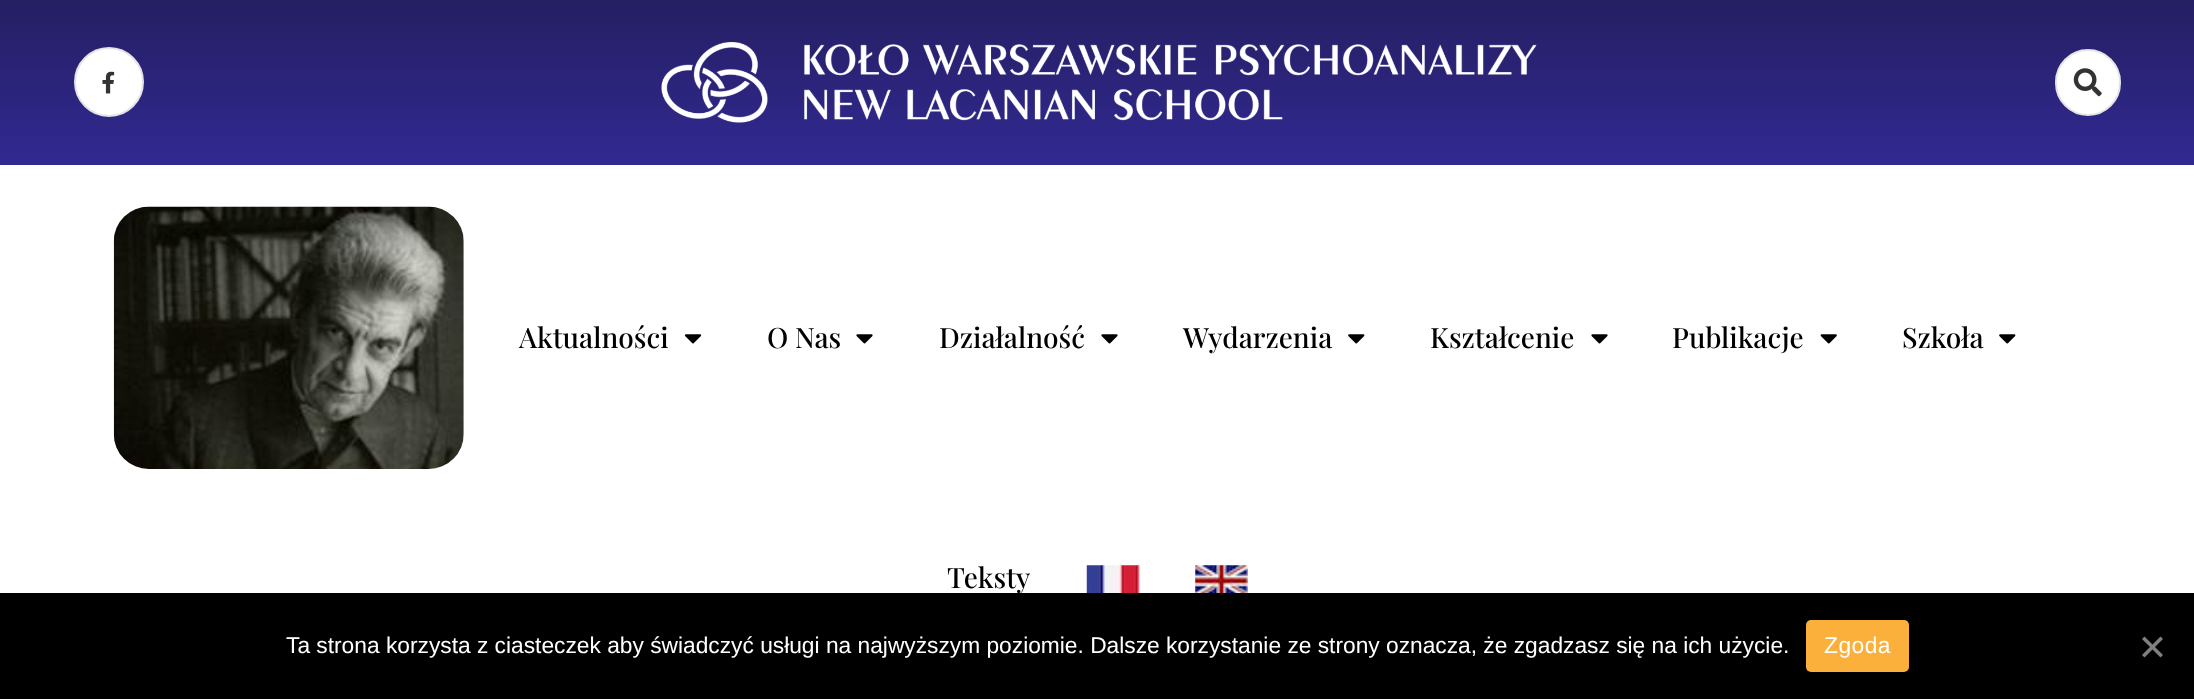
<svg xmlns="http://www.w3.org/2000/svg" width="2194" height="699">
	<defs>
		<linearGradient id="g1" gradientUnits="userSpaceOnUse" x1="1097" y1="0" x2="1097" y2="165"><stop offset="0" stop-color="#251F63" /><stop offset="1" stop-color="#312991" /></linearGradient>
	</defs>
	<rect width="100%" height="100%" fill="#FFFFFF" />
	<rect x="0" y="0" width="2194" height="165" fill="url(#g1)" />
	<circle cx="109" cy="82" r="34" fill="#FFFFFF" stroke="#E4E4E4" stroke-width="2" />
	<image x="102" y="71" width="13" height="23" href="assets/img1.png" />
	<image x="661" y="42" width="876" height="81" href="assets/img2.png" />
	<rect x="2056" y="50" width="64" height="65" rx="32" fill="#FFFFFF" stroke="#E4E4E4" stroke-width="2" />
	<image x="2073" y="68" width="29" height="29" href="assets/img3.png" />
	<image x="113" y="206" width="351" height="263" href="assets/img4.png" />
	<text x="519" y="348" font-family="Playfair Display" font-size="28" font-weight="500" fill="#000000">Aktualności</text>
	<image x="684" y="334" width="18" height="10" href="assets/img5.png" />
	<text x="767" y="348" font-family="Playfair Display" font-size="28" font-weight="500" fill="#000000">O Nas</text>
	<image x="856" y="334" width="17" height="10" href="assets/img6.png" />
	<text x="939" y="348" font-family="Playfair Display" font-size="28" font-weight="500" fill="#000000">Działalność</text>
	<image x="1101" y="334" width="17" height="10" href="assets/img6.png" />
	<text x="1183" y="348" font-family="Playfair Display" font-size="28" font-weight="500" fill="#000000">Wydarzenia</text>
	<image x="1348" y="334" width="17" height="10" href="assets/img7.png" />
	<text x="1430" y="348" font-family="Playfair Display" font-size="28" font-weight="500" fill="#000000">Kształcenie</text>
	<image x="1591" y="334" width="17" height="10" href="assets/img6.png" />
	<text x="1672" y="348" font-family="Playfair Display" font-size="28" font-weight="500" fill="#000000">Publikacje</text>
	<image x="1820" y="334" width="17" height="10" href="assets/img8.png" />
	<text x="1902" y="348" font-family="Playfair Display" font-size="28" font-weight="500" fill="#000000">Szkoła</text>
	<image x="1999" y="334" width="17" height="10" href="assets/img7.png" />
	<text x="947" y="588" font-family="Playfair Display" font-size="28" font-weight="500" fill="#000000">Teksty</text>
	<image x="1086" y="565" width="54" height="28" href="assets/img9.png" />
	<image x="1195" y="565" width="53" height="28" href="assets/img10.png" />
	<rect x="0" y="593" width="2194" height="106" fill="#000000" />
	<text x="286" y="653" font-family="Liberation Sans" font-size="22.75" fill="#FFFFFF">Ta strona korzysta z ciasteczek aby świadczyć usługi na najwyższym poziomie. Dalsze korzystanie ze strony oznacza, że zgadzasz się na ich użycie.</text>
	<rect x="1806" y="620" width="103" height="52" rx="5" fill="#FBB03B" />
	<text x="1824" y="653" font-family="Liberation Sans" font-size="22.75" letter-spacing="0.5" fill="#FFFFFF">Zgoda</text>
	<path d="M2160.5 636.5L2163 639L2144.5 657.5L2142 655Z" fill="#808080" />
	<path d="M2142 639L2144.5 636.5L2163 655L2160.5 657.5Z" fill="#808080" />
</svg>
